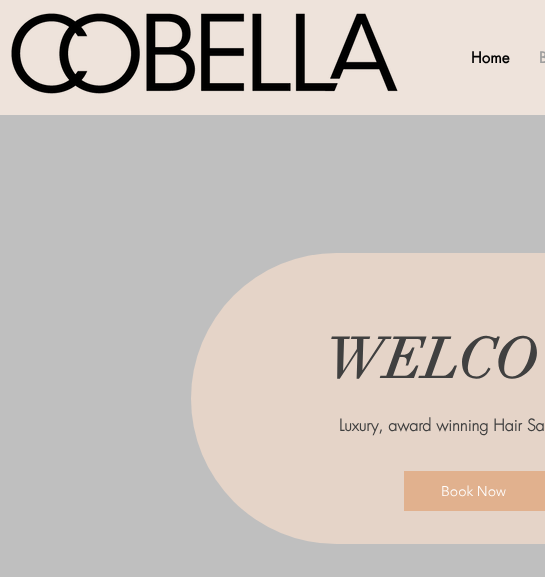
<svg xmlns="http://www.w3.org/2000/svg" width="545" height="577">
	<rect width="100%" height="100%" fill="#BFBFBF" />
	<rect x="0" y="0" width="545" height="115" fill="#EEE3DB" />
	<image x="11" y="13" width="387" height="81" href="assets/img1.png" />
	<text x="471" y="63" font-family="'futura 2'" font-size="15" font-weight="700" fill="#000000">Home</text>
	<text x="539" y="63" font-family="'futura 2'" font-size="15" font-weight="700" fill="#9E9E9E">B</text>
	<rect x="191" y="253" width="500" height="291" rx="145.5" fill="#E5D4C8" />
	<text x="327" y="378" font-family="didot" font-size="56" font-weight="700" fill="#404040">WELCO</text>
	<text x="339" y="431" font-family="futura" font-size="16" font-weight="700" fill="#404040">Luxury, award winning Hair Sa</text>
	<rect x="404" y="471" width="141" height="40" fill="#E1B18E" />
	<text x="441" y="496" font-family="'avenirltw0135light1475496'" font-size="14" font-weight="300" fill="#FFFFFF">Book Now</text>
</svg>
